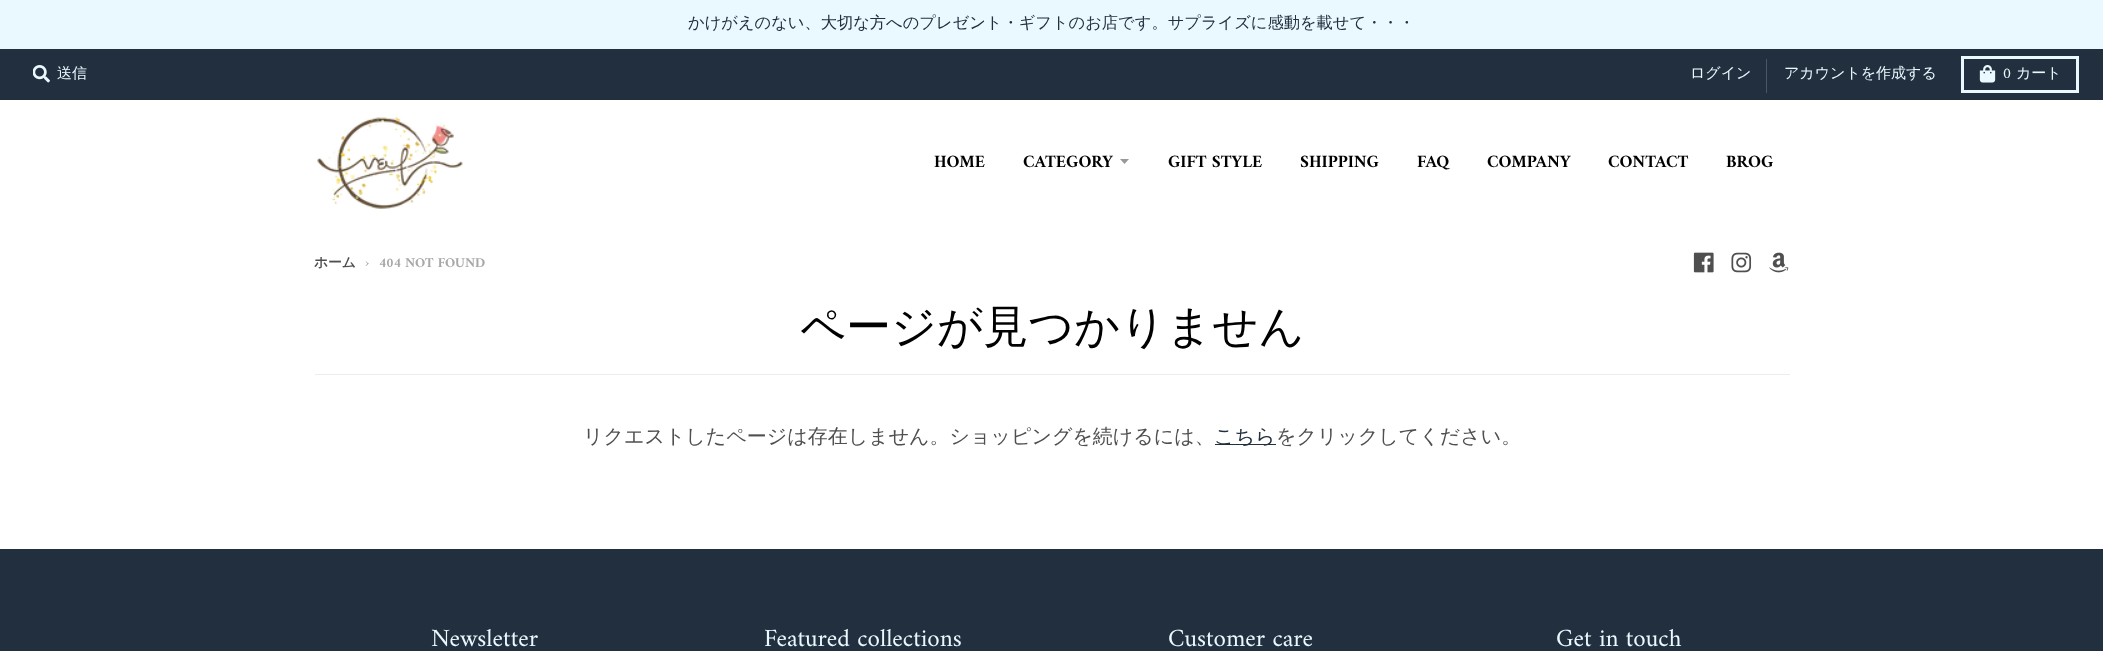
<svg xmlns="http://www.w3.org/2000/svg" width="2103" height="651">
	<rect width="100%" height="100%" fill="#FFFFFF" />
	<rect x="0" y="0" width="2103" height="49" fill="#E9F9FF" />
	<text x="688" y="28" font-family="WenQuanYi Zen Hei" font-size="16.25" font-weight="500" fill="#222F3E">かけがえのない、大切な方へのプレゼント・ギフトのお店です。サプライズに感動を載せて・・・</text>
	<rect x="0" y="49" width="2103" height="51" fill="#222F3E" />
	<image x="33" y="65" width="17" height="18" href="assets/img1.png" />
	<text x="57" y="78" font-family="WenQuanYi Zen Hei" font-size="15" font-weight="500" fill="#E9F9FF">送信</text>
	<rect x="1766" y="59" width="1" height="34" fill="#495764" />
	<g font-family="WenQuanYi Zen Hei" font-size="15" font-weight="500" fill="#E9F9FF">
		<text x="1690" y="78">ログイン</text>
		<text x="1784" y="78">アカウントを作成する</text>
	</g>
	<rect x="1962.5" y="57.5" width="115" height="34" fill="none" stroke="#E9F9FF" stroke-width="3" />
	<image x="1979" y="65" width="17" height="18" href="assets/img2.png" />
	<text x="2003" y="78" font-family="Amiri" font-size="15" fill="#E9F9FF">0</text>
	<text x="2016" y="78" font-family="WenQuanYi Zen Hei" font-size="15" font-weight="500" fill="#E9F9FF">カート</text>
	<image x="317" y="117" width="146" height="92" href="assets/img3.png" />
	<g font-family="Amiri" font-size="17.5" font-weight="700" fill="#000000">
		<text x="934" y="167">HOME</text>
		<text x="1023" y="167">CATEGORY</text>
	</g>
	<path d="M1120 159L1124.5 164L1129 159Z" fill="#999999" />
	<g font-family="Amiri" font-size="17.5" font-weight="700" fill="#000000">
		<text x="1168" y="167">GIFT STYLE</text>
		<text x="1300" y="167">SHIPPING</text>
		<text x="1417" y="167">FAQ</text>
		<text x="1487" y="167">COMPANY</text>
		<text x="1608" y="167">CONTACT</text>
		<text x="1726" y="167">BROG</text>
	</g>
	<text x="314" y="267" font-family="WenQuanYi Zen Hei" font-size="13.75" font-weight="700" fill="#4F4F4F">ホーム</text>
	<g font-family="Amiri" font-size="13.75" font-weight="700" fill="#A7A7A7">
		<text x="365" y="267">›</text>
		<text x="379" y="267">404 NOT FOUND</text>
	</g>
	<image x="1693" y="252" width="21" height="21" href="assets/img4.png" />
	<image x="1731" y="252" width="21" height="21" href="assets/img5.png" />
	<image x="1769" y="252" width="20" height="21" href="assets/img6.png" />
	<rect x="315" y="374" width="1475" height="1" fill="#EDEDED" />
	<text x="800" y="342" font-family="WenQuanYi Zen Hei" font-size="45" font-weight="500" fill="#000000">ページが見つかりません</text>
	<text x="583" y="443" font-family="WenQuanYi Zen Hei" font-size="20" font-weight="500" fill="#4F4F4F">リクエストしたページは存在しません。ショッピングを続けるには、</text>
	<rect x="1215" y="444" width="61" height="1" fill="#222F3E" />
	<text x="1214" y="443" font-family="WenQuanYi Zen Hei" font-size="20" font-weight="500" fill="#222F3E">こちら</text>
	<text x="1276" y="443" font-family="WenQuanYi Zen Hei" font-size="20" font-weight="500" fill="#4F4F4F">をクリックしてください。</text>
	<rect x="0" y="549" width="2103" height="102" fill="#222F3E" />
	<g font-family="Amiri" font-size="25" fill="#E9F9FF">
		<text x="431" y="646">Newsletter</text>
		<text x="764" y="646">Featured collections</text>
		<text x="1168" y="646">Customer care</text>
		<text x="1556" y="646">Get in touch</text>
	</g>
</svg>
